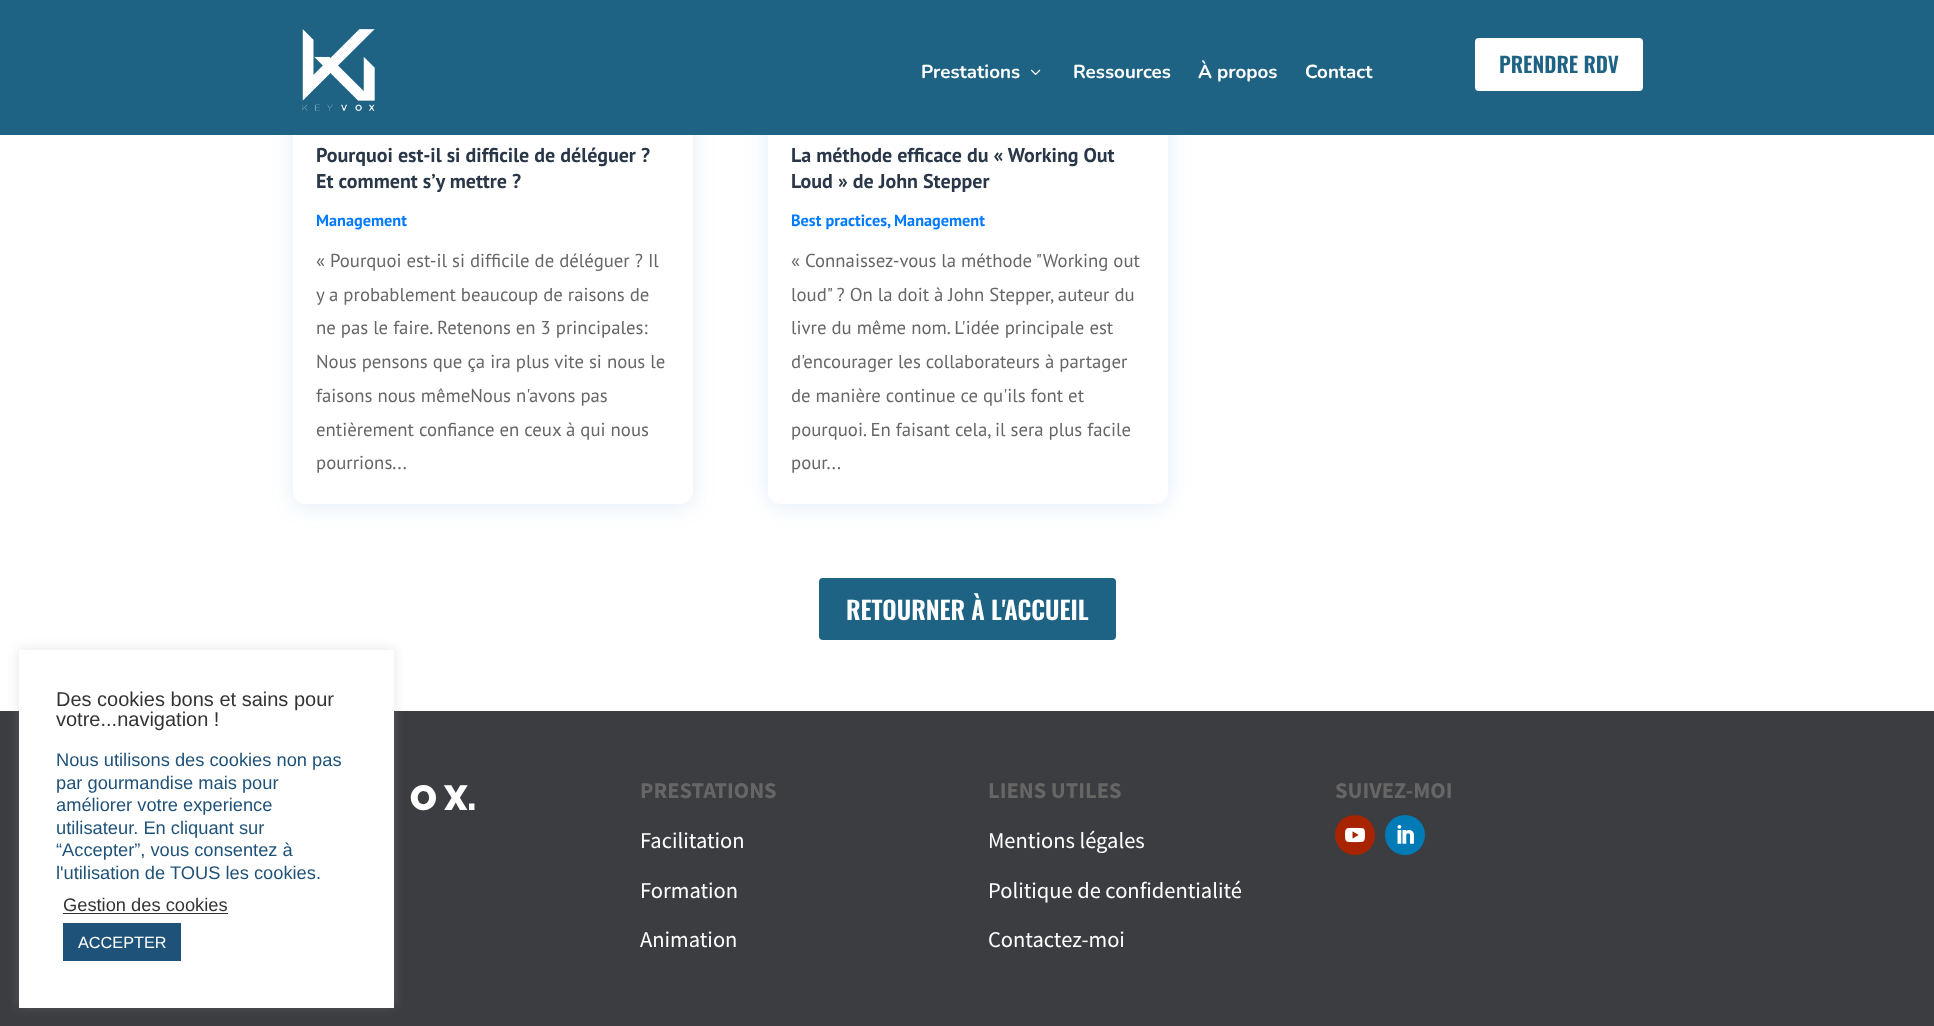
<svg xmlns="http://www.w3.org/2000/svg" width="1934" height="1026">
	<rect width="100%" height="100%" fill="#FFFFFF" />
	<rect x="0" y="711" width="1934" height="315" fill="#3C3D41" />
	<rect x="19" y="649" width="375" height="357" fill="#ACABAB" fill-opacity="0.3" filter="blur(6px)" />
	<rect x="19" y="650" width="375" height="358" fill="#FFFFFF" />
	<g font-family="Liberation Sans" font-size="20" fill="#333333">
		<text x="56" y="706">Des cookies bons et sains pour</text>
		<text x="56" y="726">votre...navigation !</text>
	</g>
	<g font-family="Liberation Sans" font-size="18.3" fill="#1F5279">
		<text x="56" y="766">Nous utilisons des cookies non pas</text>
		<text x="56" y="789">par gourmandise mais pour</text>
		<text x="56" y="811">améliorer votre experience</text>
		<text x="56" y="834">utilisateur. En cliquant sur</text>
		<text x="56" y="856">“Accepter”, vous consentez à</text>
		<text x="56" y="879">l'utilisation de TOUS les cookies.</text>
	</g>
	<text x="63" y="911" font-family="Liberation Sans" font-size="18.3" fill="#333333">Gestion des cookies</text>
	<rect x="63" y="913" width="165" height="1" fill="#333333" />
	<rect x="63" y="923" width="118" height="38" fill="#1F5279" />
	<text x="78" y="948" font-family="Liberation Sans" font-size="16.25" fill="#FFFFFF">ACCEPTER</text>
	<rect x="293" y="-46" width="400" height="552" rx="13" fill="#0C71C3" fill-opacity="0.13" filter="blur(11px)" />
	<rect x="293" y="-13" width="400" height="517" rx="13" fill="#FFFFFF" />
	<rect x="768" y="-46" width="400" height="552" rx="13" fill="#0C71C3" fill-opacity="0.13" filter="blur(11px)" />
	<rect x="768" y="-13" width="400" height="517" rx="13" fill="#FFFFFF" />
	<rect x="0" y="0" width="1934" height="135" fill="#1E6384" />
	<image x="302" y="29" width="73" height="83" href="assets/img1.png" />
	<text x="921" y="78" font-family="Nunito" font-size="18.75" font-weight="200" fill="#FFFFFF">Prestations</text>
	<image x="1031" y="69" width="10" height="6" href="assets/img2.png" />
	<g font-family="Nunito" font-size="18.75" font-weight="200" fill="#FFFFFF">
		<text x="1073" y="78">Ressources</text>
		<text x="1198" y="78">À propos</text>
		<text x="1305" y="78">Contact</text>
	</g>
	<rect x="1476.5" y="39.5" width="165" height="50" rx="2.5" fill="#FFFFFF" stroke="#FFFFFF" stroke-width="3" />
	<text x="1499" y="73" font-family="Oswald" font-size="21.25" font-weight="600" fill="#1E6384">PRENDRE RDV</text>
	<g font-family="PT Sans" font-size="20" font-weight="700" fill="#2A3749">
		<text x="316" y="162">Pourquoi est-il si difficile de déléguer ?</text>
		<text x="316" y="188">Et comment s’y mettre ?</text>
	</g>
	<text x="316" y="226" font-family="PT Sans" font-size="16.25" font-weight="700" fill="#007AFF">Management</text>
	<g font-family="PT Sans" font-size="18.75" fill="#666666">
		<text x="316" y="267">« Pourquoi est-il si difficile de déléguer ? Il</text>
		<text x="316" y="301">y a probablement beaucoup de raisons de</text>
		<text x="316" y="334">ne pas le faire. Retenons en 3 principales:</text>
		<text x="316" y="368">Nous pensons que ça ira plus vite si nous le</text>
		<text x="316" y="402">faisons nous mêmeNous n'avons pas</text>
		<text x="316" y="436">entièrement confiance en ceux à qui nous</text>
		<text x="316" y="469">pourrions...</text>
	</g>
	<g font-family="PT Sans" font-size="20" font-weight="700" fill="#2A3749">
		<text x="791" y="162">La méthode efficace du « Working Out</text>
		<text x="791" y="188">Loud » de John Stepper</text>
	</g>
	<text x="791" y="226" font-family="PT Sans" font-size="16.25" font-weight="700" fill="#007AFF">Best practices, Management</text>
	<g font-family="PT Sans" font-size="18.75" fill="#666666">
		<text x="791" y="267">« Connaissez-vous la méthode "Working out</text>
		<text x="791" y="301">loud" ? On la doit à John Stepper, auteur du</text>
		<text x="791" y="334">livre du même nom. L'idée principale est</text>
		<text x="791" y="368">d'encourager les collaborateurs à partager</text>
		<text x="791" y="402">de manière continue ce qu'ils font et</text>
		<text x="791" y="436">pourquoi. En faisant cela, il sera plus facile</text>
		<text x="791" y="469">pour...</text>
	</g>
	<rect x="820.5" y="579.5" width="294" height="59" rx="2.5" fill="#1E6384" stroke="#1E6384" stroke-width="3" />
	<text x="846" y="620" font-family="Oswald" font-size="25" font-weight="600" fill="#FFFFFF">RETOURNER À L'ACCUEIL</text>
	<text x="410" y="810" font-family="Raleway" font-size="35" font-weight="100" fill="#FFFFFF">O X.</text>
	<text x="640" y="798" font-family="Source Sans Pro" font-size="22.5" font-weight="700" fill="#666666">PRESTATIONS</text>
	<g font-family="Source Sans Pro" font-size="22.5" fill="#FFFFFF">
		<text x="640" y="848">Facilitation</text>
		<text x="640" y="898">Formation</text>
		<text x="640" y="947">Animation</text>
	</g>
	<text x="988" y="798" font-family="Source Sans Pro" font-size="22.5" font-weight="700" fill="#666666">LIENS UTILES</text>
	<g font-family="Source Sans Pro" font-size="22.5" fill="#FFFFFF">
		<text x="988" y="848">Mentions légales</text>
		<text x="988" y="898">Politique de confidentialité</text>
		<text x="988" y="947">Contactez-moi</text>
	</g>
	<text x="1335" y="798" font-family="Source Sans Pro" font-size="22.5" font-weight="700" fill="#666666">SUIVEZ-MOI</text>
	<circle cx="1355" cy="835" r="20" fill="#A82400" />
	<image x="1345" y="827" width="20" height="16" href="assets/img3.png" />
	<circle cx="1405" cy="835" r="20" fill="#007BB6" />
	<image x="1397" y="825" width="17" height="19" href="assets/img4.png" />
</svg>
